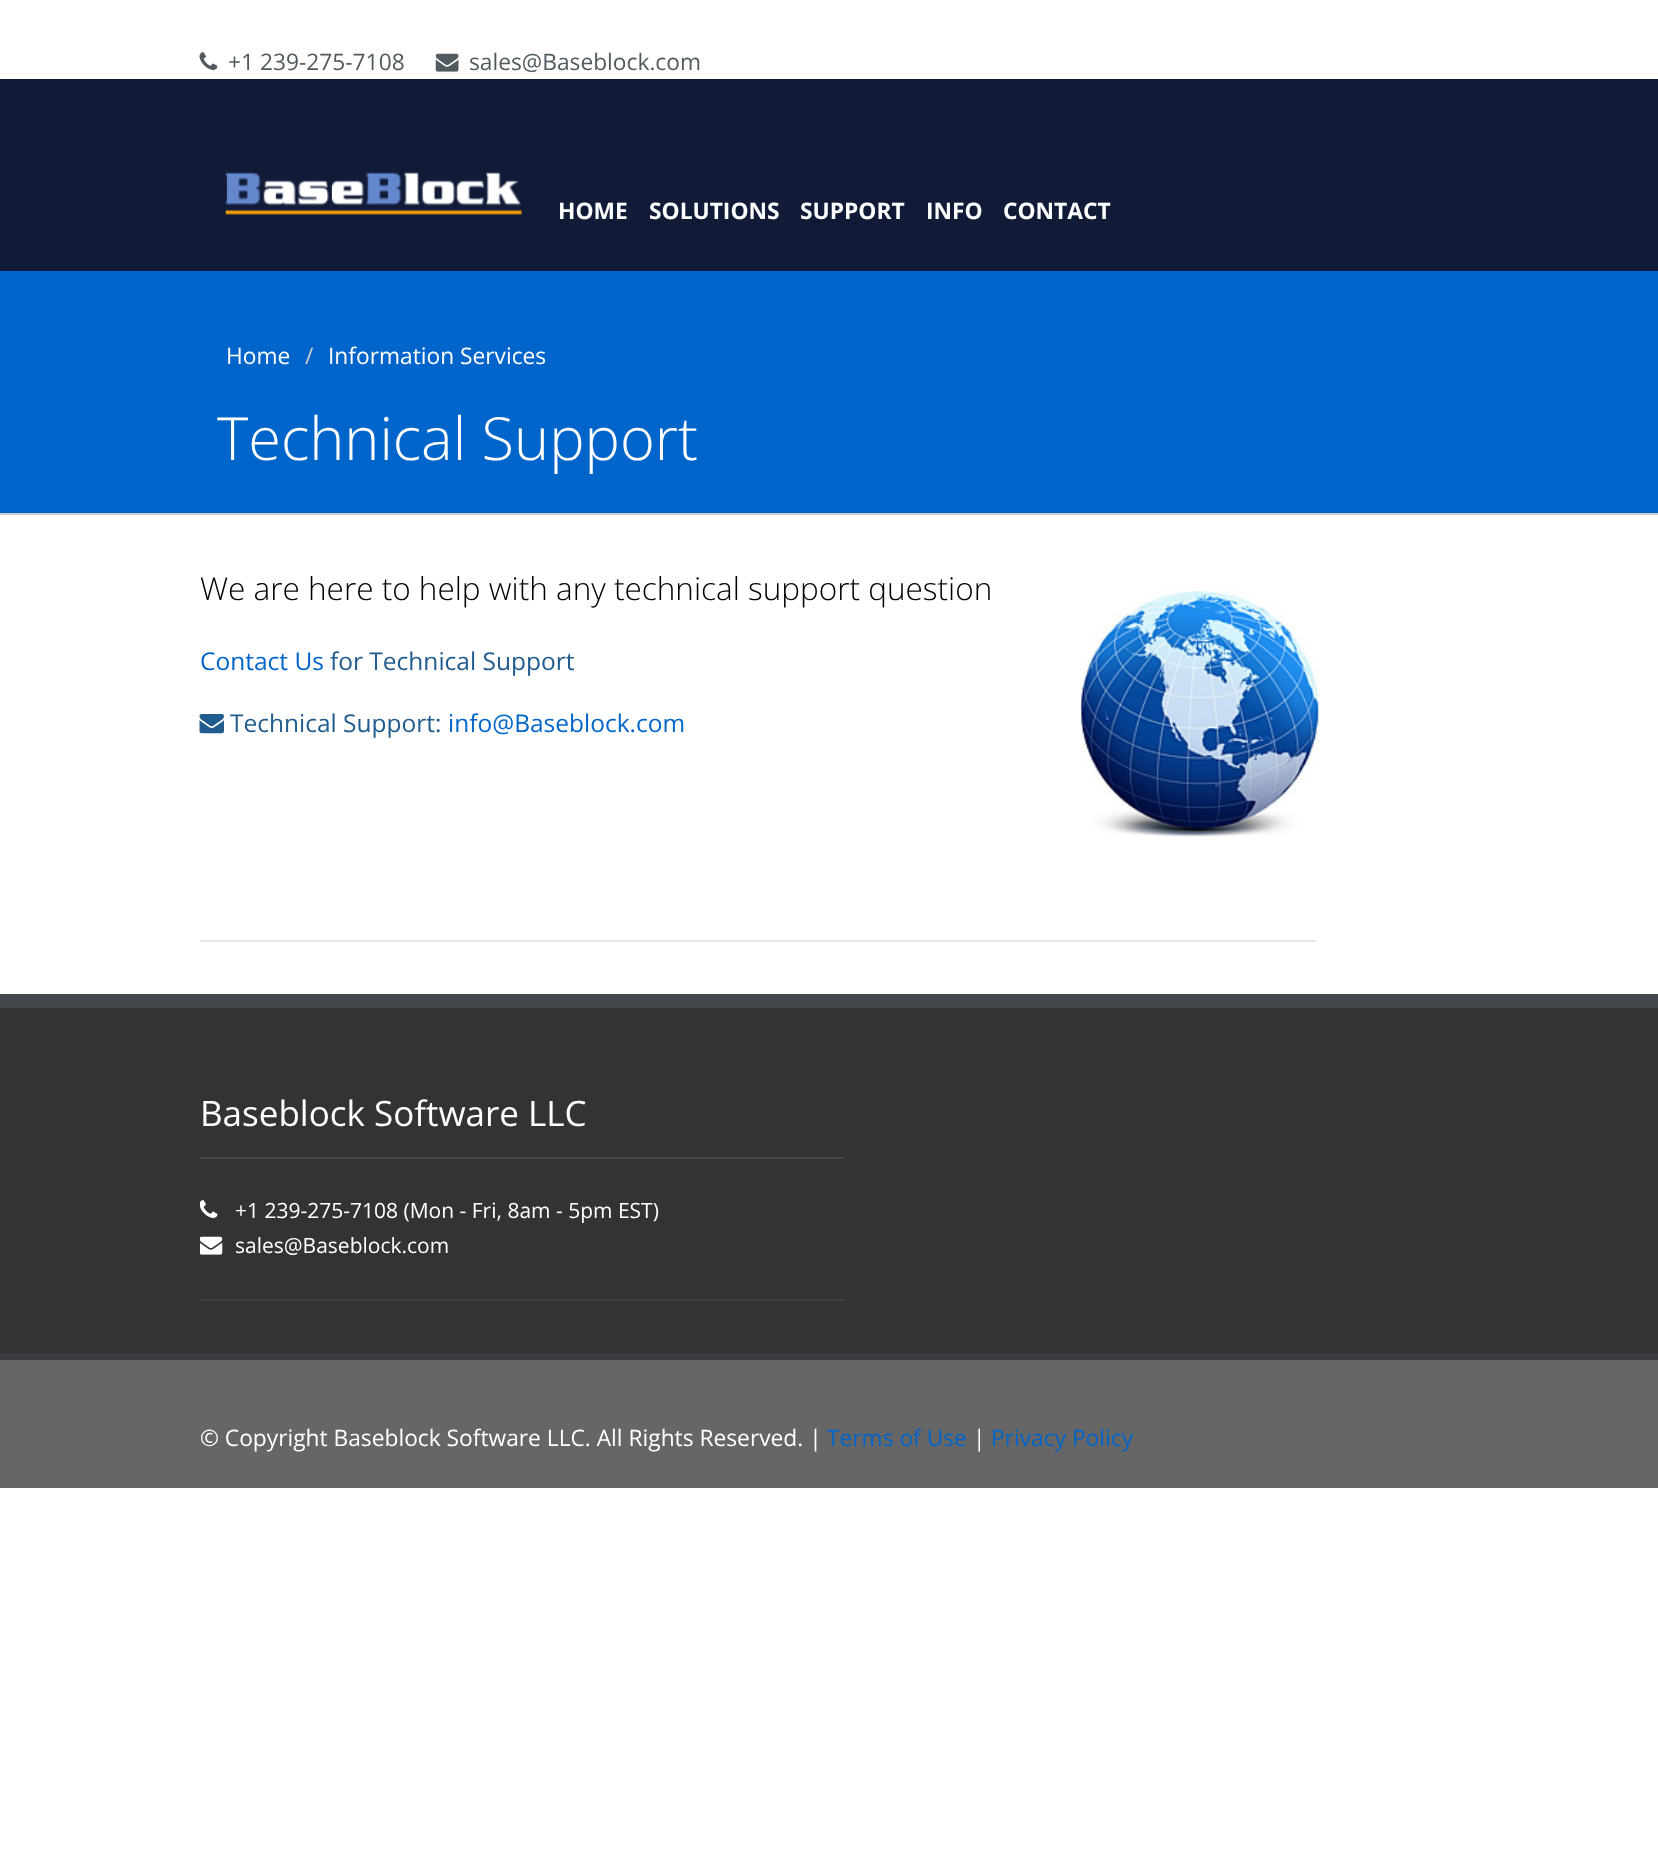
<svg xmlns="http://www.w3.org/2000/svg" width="1658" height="1859">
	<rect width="100%" height="100%" fill="#FFFFFF" />
	<rect x="0" y="79" width="1658" height="192" fill="#111B38" />
	<image x="199" y="52" width="19" height="18" href="assets/img1.png" />
	<text x="228" y="70" font-family="Open Sans" font-size="22.75" fill="#515A5F">+1 239-275-7108</text>
	<image x="435" y="53" width="24" height="19" href="assets/img2.png" />
	<text x="469" y="70" font-family="Open Sans" font-size="22.75" fill="#515A5F">sales@Baseblock.com</text>
	<image x="225" y="172" width="297" height="43" href="assets/img3.png" />
	<g font-family="Open Sans" font-size="22.75" font-weight="700" fill="#FFFFFF">
		<text x="558" y="219">HOME</text>
		<text x="649" y="219">SOLUTIONS</text>
		<text x="800" y="219">SUPPORT</text>
		<text x="926" y="219">INFO</text>
		<text x="1003" y="219">CONTACT</text>
	</g>
	<rect x="0" y="271" width="1658" height="242" fill="#0065CA" />
	<rect x="0" y="513" width="1658" height="2" fill="#CCCCCC" />
	<text x="226" y="364" font-family="Open Sans" font-size="22.75" fill="#FFFFFF">Home</text>
	<text x="305" y="364" font-family="Open Sans" font-size="22.75" fill="#CCCCCC">/</text>
	<text x="328" y="364" font-family="Open Sans" font-size="22.75" fill="#FFFFFF">Information Services</text>
	<text x="217" y="460" font-family="Open Sans" font-size="59.5" font-weight="300" fill="#FFFFFF">Technical Support</text>
	<text x="200" y="600" font-family="Open Sans" font-size="31.5" font-weight="300" fill="#000000">We are here to help with any technical support question</text>
	<text x="200" y="670" font-family="Open Sans" font-size="24.5" fill="#0065CA">Contact Us</text>
	<text x="330" y="670" font-family="Open Sans" font-size="24.5" fill="#205C8E">for Technical Support</text>
	<image x="199" y="714" width="25" height="20" href="assets/img4.png" />
	<text x="230" y="732" font-family="Open Sans" font-size="24.5" fill="#205C8E">Technical Support:</text>
	<text x="448" y="732" font-family="Open Sans" font-size="24.5" fill="#0065CA">info@Baseblock.com</text>
	<image x="1080" y="590" width="240" height="247" href="assets/img5.png" />
	<rect x="200" y="940" width="1116" height="2" fill="#E5E5E5" />
	<rect x="0" y="1360" width="1658" height="128" fill="#666666" />
	<rect x="0" y="994" width="1658" height="14" fill="#43464B" />
	<rect x="0" y="1008" width="1658" height="345" fill="#333333" />
	<rect x="0" y="1353" width="1658" height="7" fill="#3A3C41" />
	<rect x="200" y="1299" width="644" height="2" fill="#414141" />
	<rect x="200" y="1157" width="644" height="2" fill="#43464B" />
	<text x="200" y="1126" font-family="Open Sans" font-size="35" fill="#FFFFFF">Baseblock Software LLC</text>
	<image x="200" y="1200" width="18" height="18" href="assets/img6.png" />
	<text x="235" y="1218" font-family="Open Sans" font-size="21" fill="#FFFFFF">+1 239-275-7108 (Mon - Fri, 8am - 5pm EST)</text>
	<image x="200" y="1236" width="23" height="19" href="assets/img7.png" />
	<text x="235" y="1253" font-family="Open Sans" font-size="21" fill="#FFFFFF">sales@Baseblock.com</text>
	<text x="200" y="1446" font-family="Open Sans" font-size="22.75" fill="#FFFFFF">© Copyright Baseblock Software LLC. All Rights Reserved. |</text>
	<text x="827" y="1446" font-family="Open Sans" font-size="22.75" fill="#0065CA">Terms of Use</text>
	<text x="973" y="1446" font-family="Open Sans" font-size="22.75" fill="#FFFFFF">|</text>
	<text x="991" y="1446" font-family="Open Sans" font-size="22.75" fill="#0065CA">Privacy Policy</text>
</svg>
